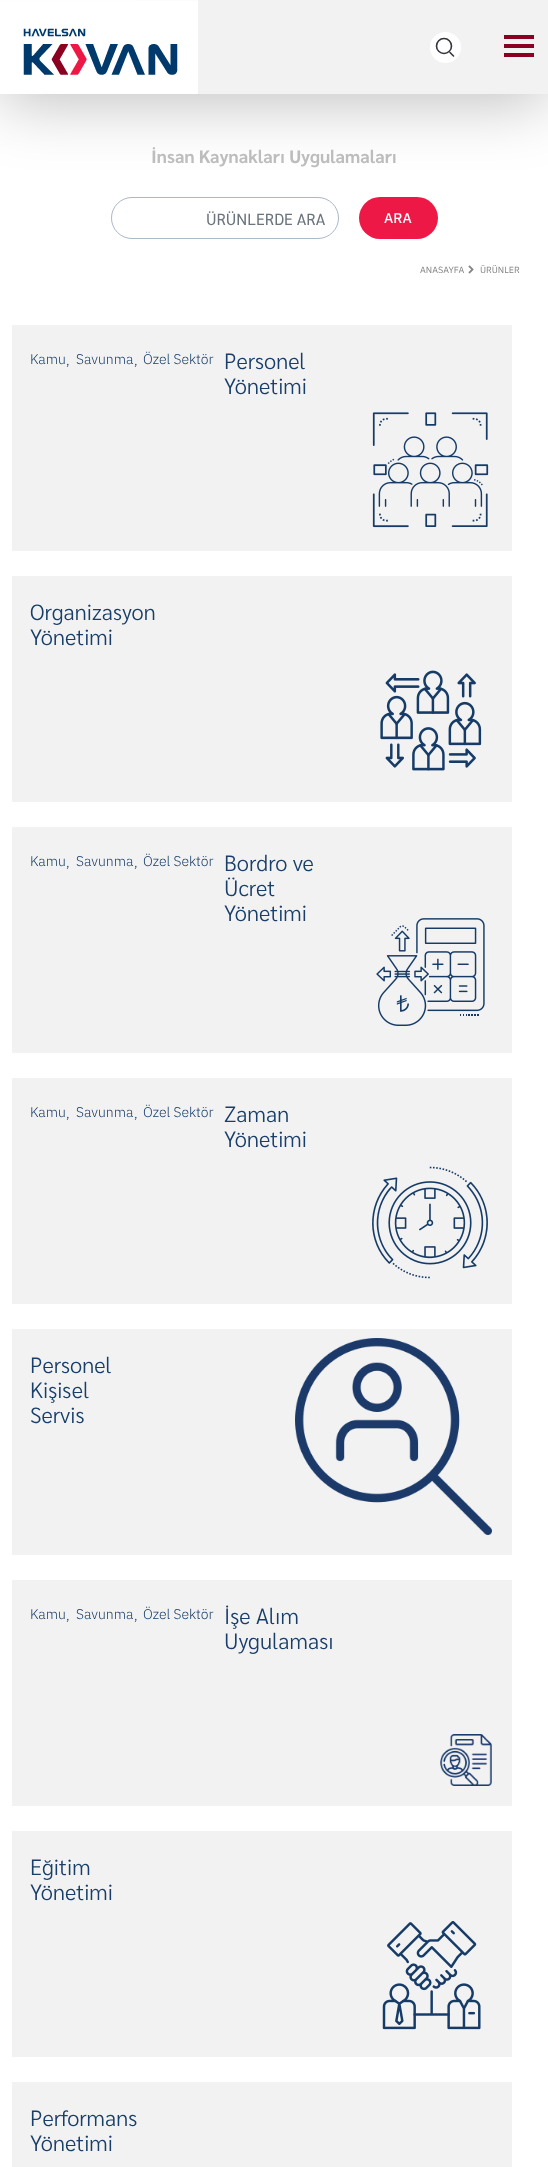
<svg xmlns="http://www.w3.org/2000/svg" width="548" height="2167">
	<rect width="100%" height="100%" fill="#FFFFFF" />
	<rect x="111.5" y="197.5" width="227" height="41" rx="20.5" fill="none" stroke="#AAB8C8" />
	<rect x="359" y="197" width="79" height="42" rx="21" fill="#ED1846" />
	<rect x="0" y="8" width="548" height="94" fill="#000000" fill-opacity="0.25" filter="blur(32px)" />
	<rect x="198" y="0" width="350" height="94" fill="#F2F2F2" />
	<image x="0" y="0" width="198" height="94" href="assets/img1.png" />
	<circle cx="445.5" cy="47.5" r="15.5" fill="#FFFFFF" />
	<circle cx="444" cy="46" r="7.5" fill="none" stroke="#35343E" stroke-width="1.6" />
	<path d="M450 52.5L453.5 56" fill="none" stroke="#35343E" stroke-width="1.6" stroke-linecap="round" stroke-linejoin="round" />
	<rect x="504" y="44" width="30" height="4" fill="#8B0021" />
	<rect x="504" y="35" width="30" height="4" fill="#8B0021" />
	<rect x="504" y="53" width="30" height="4" fill="#8B0021" />
	<text x="151" y="163" font-family="Sarabun" font-size="18" font-weight="700" fill="#BDBDBD">İnsan Kaynakları Uygulamaları</text>
	<text x="206" y="225" font-family="Sarabun" font-size="16" fill="#6C757D">ÜRÜNLERDE ARA</text>
	<text x="384" y="223" font-family="IBM Plex Sans" font-size="14" font-weight="500" fill="#FFFFFF">ARA</text>
	<text x="420" y="273" font-family="IBM Plex Sans" font-size="9" fill="#828282">ANASAYFA</text>
	<image x="468" y="265" width="6" height="9" href="assets/img2.png" />
	<text x="480" y="273" font-family="IBM Plex Sans" font-size="9" fill="#828282">ÜRÜNLER</text>
	<rect x="12" y="325" width="500" height="226" fill="#F2F2F2" />
	<g font-family="IBM Plex Sans" font-size="14" font-weight="300" fill="#183E69">
		<text x="30" y="364">Kamu</text>
		<text x="66" y="365">,</text>
		<text x="76" y="364">Savunma</text>
		<text x="134" y="365">,</text>
		<text x="143" y="364">Özel Sektör</text>
	</g>
	<g font-family="Sarabun" font-size="22" font-weight="300" fill="#183E69">
		<text x="224" y="369">Personel</text>
		<text x="224" y="394">Yönetimi</text>
	</g>
	<image x="372" y="412" width="117" height="116" href="assets/img3.png" />
	<rect x="12" y="576" width="500" height="226" fill="#F2F2F2" />
	<g font-family="Sarabun" font-size="22" font-weight="300" fill="#183E69">
		<text x="30" y="620">Organizasyon</text>
		<text x="30" y="645">Yönetimi</text>
	</g>
	<image x="380" y="670" width="102" height="101" href="assets/img4.png" />
	<rect x="12" y="827" width="500" height="226" fill="#F2F2F2" />
	<g font-family="IBM Plex Sans" font-size="14" font-weight="300" fill="#183E69">
		<text x="30" y="866">Kamu</text>
		<text x="66" y="867">,</text>
		<text x="76" y="866">Savunma</text>
		<text x="134" y="867">,</text>
		<text x="143" y="866">Özel Sektör</text>
	</g>
	<g font-family="Sarabun" font-size="22" font-weight="300" fill="#183E69">
		<text x="224" y="871">Bordro ve</text>
		<text x="224" y="896">Ücret</text>
		<text x="224" y="921">Yönetimi</text>
	</g>
	<image x="376" y="918" width="109" height="108" href="assets/img5.png" />
	<rect x="12" y="1078" width="500" height="226" fill="#F2F2F2" />
	<g font-family="IBM Plex Sans" font-size="14" font-weight="300" fill="#183E69">
		<text x="30" y="1117">Kamu</text>
		<text x="66" y="1118">,</text>
		<text x="76" y="1117">Savunma</text>
		<text x="134" y="1118">,</text>
		<text x="143" y="1117">Özel Sektör</text>
	</g>
	<g font-family="Sarabun" font-size="22" font-weight="300" fill="#183E69">
		<text x="224" y="1122">Zaman</text>
		<text x="224" y="1147">Yönetimi</text>
	</g>
	<image x="372" y="1166" width="116" height="113" href="assets/img6.png" />
	<rect x="12" y="1329" width="500" height="226" fill="#F2F2F2" />
	<g font-family="Sarabun" font-size="22" font-weight="300" fill="#183E69">
		<text x="30" y="1373">Personel</text>
		<text x="30" y="1398">Kişisel</text>
		<text x="30" y="1423">Servis</text>
	</g>
	<image x="295" y="1338" width="197" height="197" href="assets/img7.png" />
	<rect x="12" y="1580" width="500" height="226" fill="#F2F2F2" />
	<g font-family="IBM Plex Sans" font-size="14" font-weight="300" fill="#183E69">
		<text x="30" y="1619">Kamu</text>
		<text x="66" y="1620">,</text>
		<text x="76" y="1619">Savunma</text>
		<text x="134" y="1620">,</text>
		<text x="143" y="1619">Özel Sektör</text>
	</g>
	<g font-family="Sarabun" font-size="22" font-weight="300" fill="#183E69">
		<text x="224" y="1624">İşe Alım</text>
		<text x="224" y="1649">Uygulaması</text>
	</g>
	<image x="440" y="1734" width="52" height="52" href="assets/img8.png" />
	<rect x="12" y="1831" width="500" height="226" fill="#F2F2F2" />
	<g font-family="Sarabun" font-size="22" font-weight="300" fill="#183E69">
		<text x="30" y="1875">Eğitim</text>
		<text x="30" y="1900">Yönetimi</text>
	</g>
	<image x="382" y="1921" width="99" height="109" href="assets/img9.png" />
	<rect x="12" y="2082" width="500" height="85" fill="#F2F2F2" />
	<g font-family="Sarabun" font-size="22" font-weight="300" fill="#183E69">
		<text x="30" y="2126">Performans</text>
		<text x="30" y="2151">Yönetimi</text>
	</g>
</svg>
